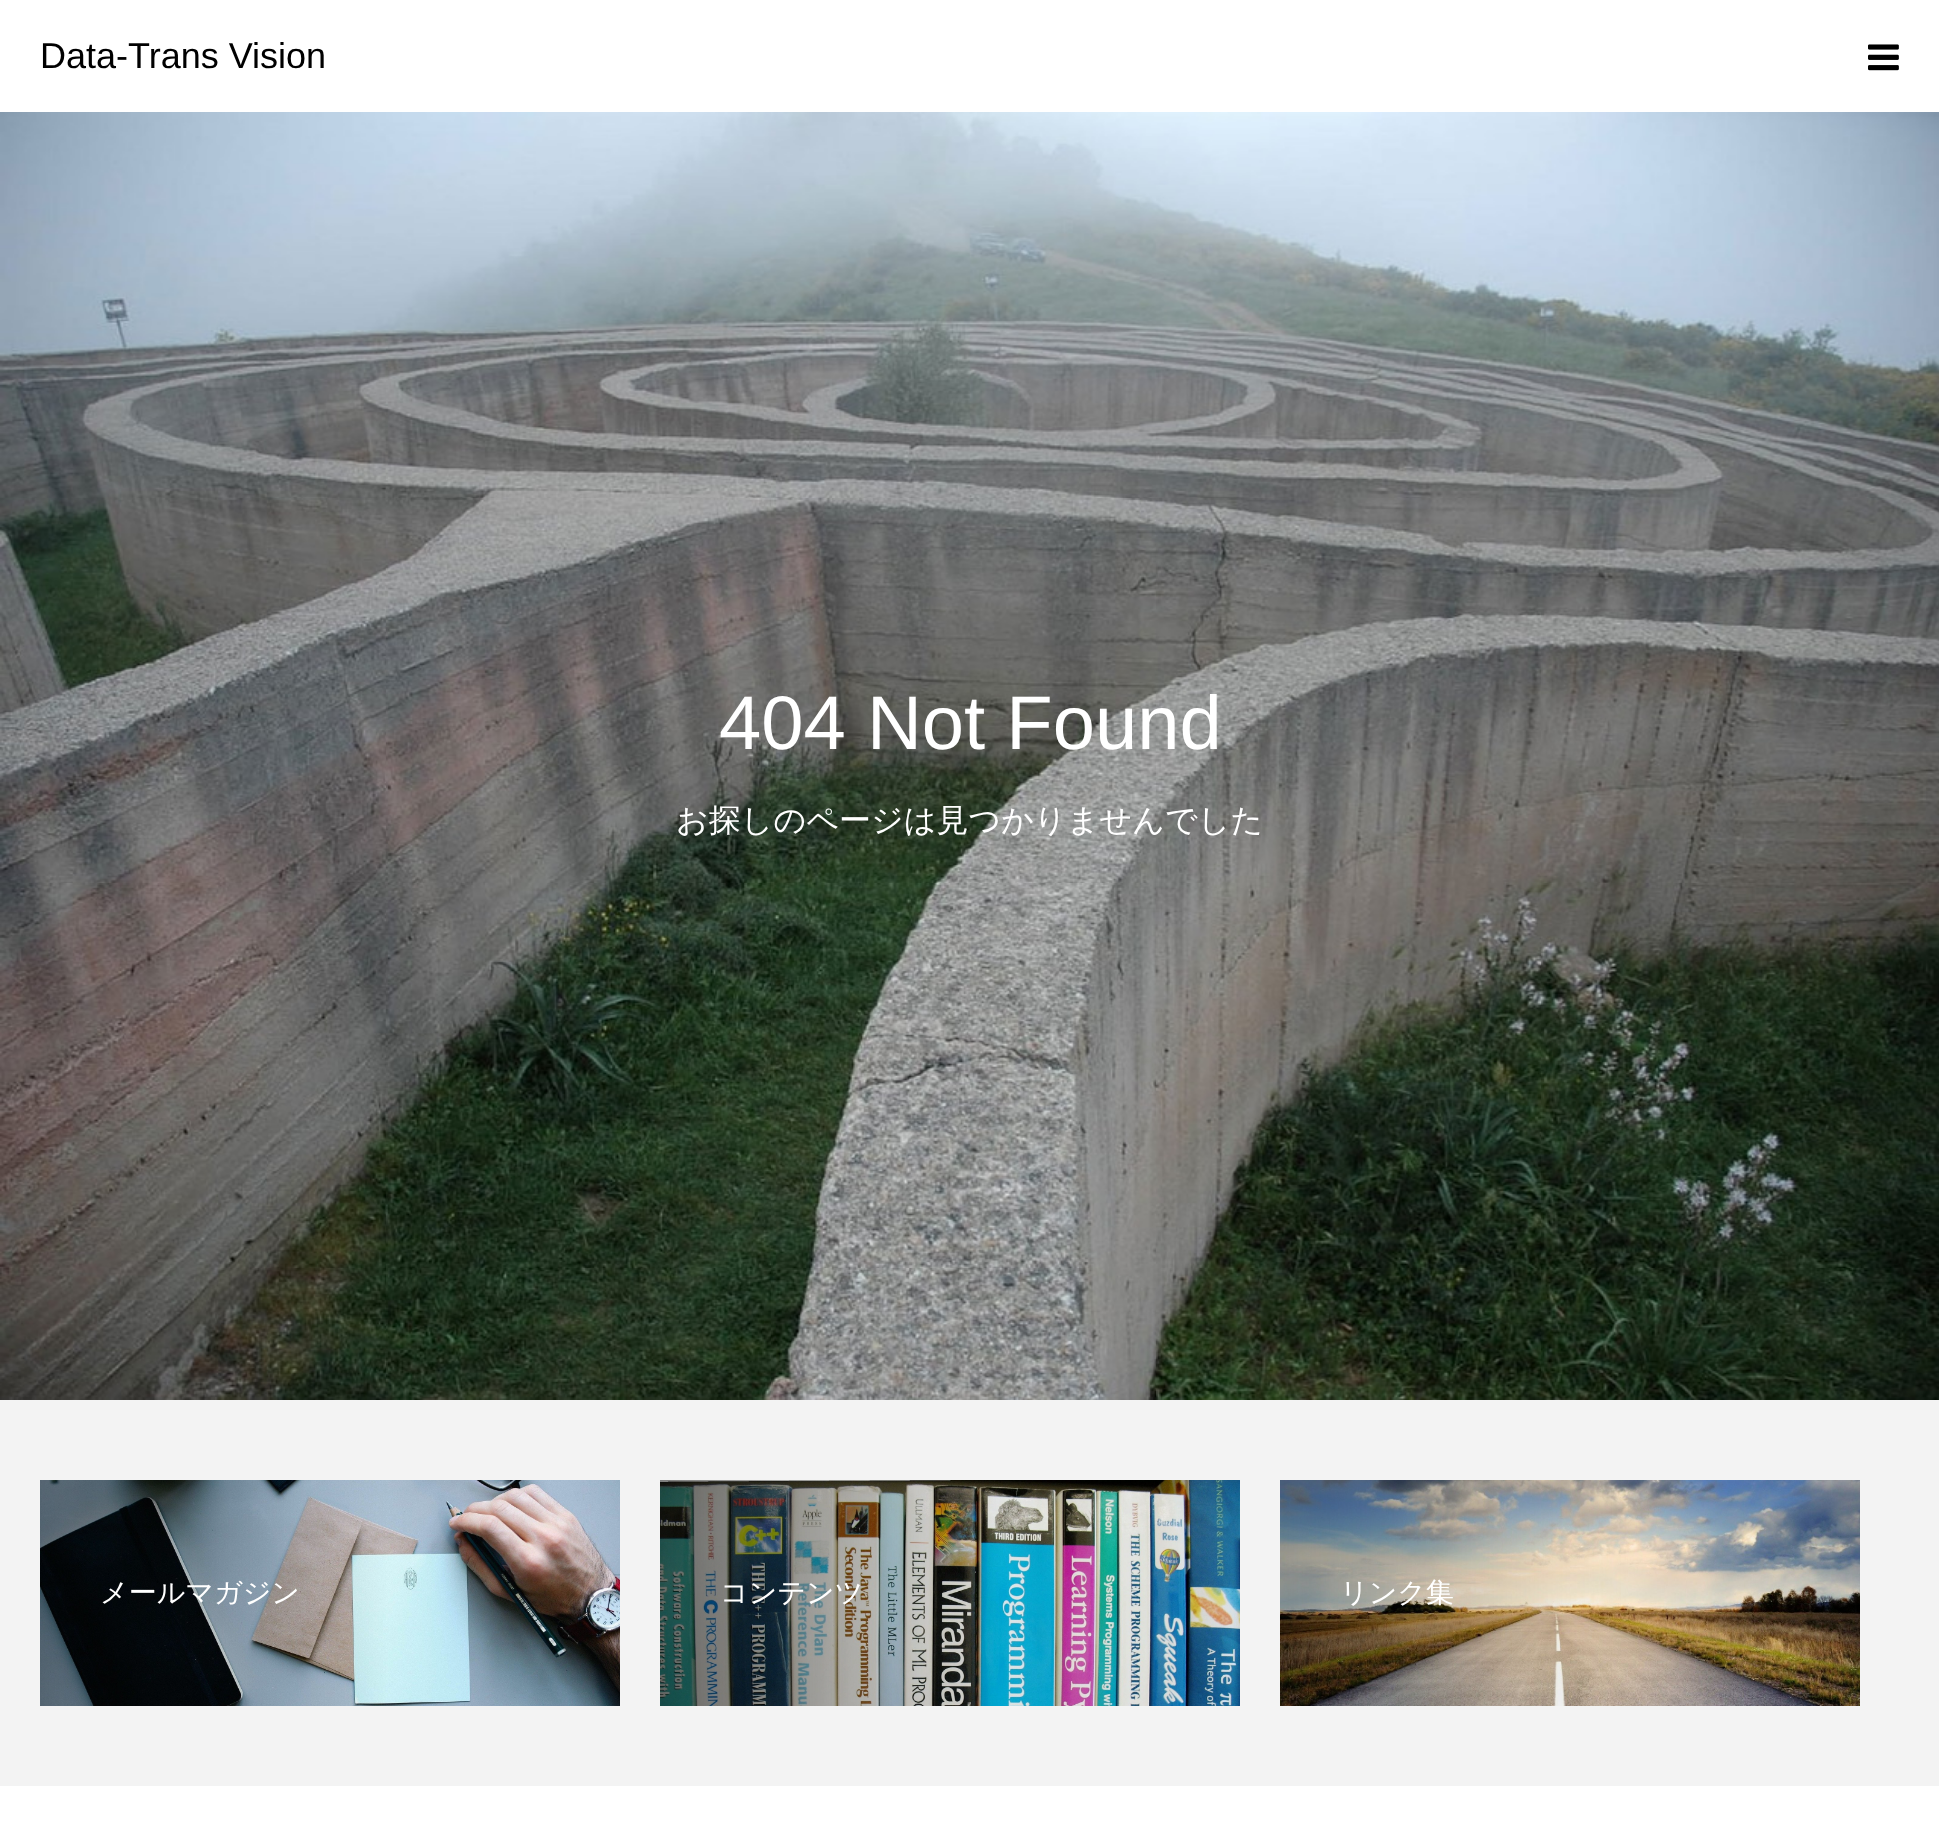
<svg xmlns="http://www.w3.org/2000/svg" width="1939" height="1834">
	<rect width="100%" height="100%" fill="#FFFFFF" />
	<text x="40" y="68" font-family="Liberation Sans" font-size="36" fill="#000000">Data-Trans Vision</text>
	<image x="1868" y="44" width="31" height="27" href="assets/img1.png" />
	<image x="0" y="112" width="1939" height="1288" href="assets/img2.png" />
	<text x="719" y="749" font-family="Liberation Sans" font-size="76" fill="#FFFFFF">404 Not Found</text>
	<text x="676" y="831" font-family="WenQuanYi Zen Hei" font-size="32" font-weight="500" fill="#FFFFFF">お探しのページは見つかりませんでした</text>
	<rect x="0" y="1400" width="1939" height="386" fill="#F3F3F3" />
	<image x="40" y="1480" width="580" height="226" href="assets/img3.png" />
	<text x="100" y="1602" font-family="WenQuanYi Zen Hei" font-size="28" font-weight="500" fill="#FFFFFF">メールマガジン</text>
	<image x="660" y="1480" width="580" height="226" href="assets/img4.png" />
	<text x="720" y="1602" font-family="WenQuanYi Zen Hei" font-size="28" font-weight="500" fill="#FFFFFF">コンテンツ</text>
	<image x="1280" y="1480" width="580" height="226" href="assets/img5.png" />
	<text x="1340" y="1602" font-family="WenQuanYi Zen Hei" font-size="28" font-weight="500" fill="#FFFFFF">リンク集</text>
</svg>
